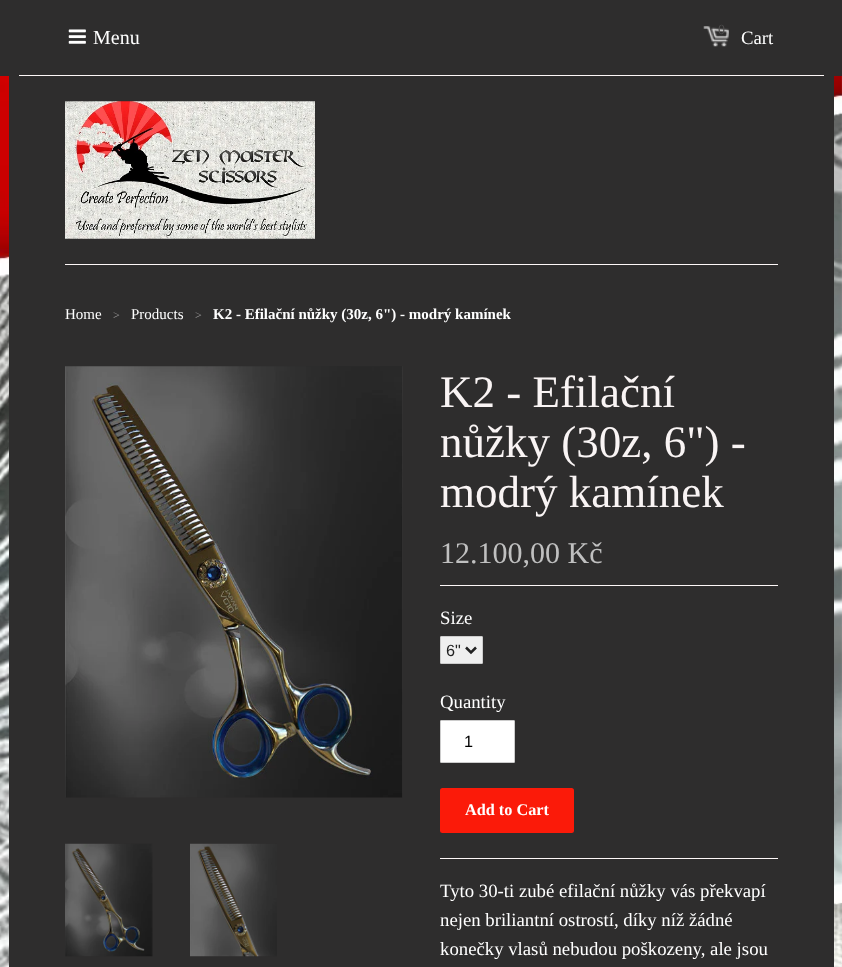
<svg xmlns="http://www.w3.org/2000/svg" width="842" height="967">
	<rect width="100%" height="100%" fill="#FFFFFF" />
	<image x="0" y="76" width="842" height="891" href="assets/img1.png" />
	<rect x="0" y="0" width="842" height="76" fill="#2E2D2D" />
	<rect x="19" y="75" width="805" height="1" fill="#FDF7F7" />
	<image x="68" y="29" width="18" height="15" href="assets/img2.png" />
	<text x="93" y="44" font-family="Liberation Serif" font-size="20" fill="#FFFFFF">Menu</text>
	<image x="703" y="26" width="26" height="21" href="assets/img3.png" />
	<text x="718" y="34" font-family="Liberation Serif" font-size="14" fill="#4E4D4D">0</text>
	<text x="741" y="44" font-family="Liberation Serif" font-size="18.75" fill="#FFFFFF">Cart</text>
	<rect x="9" y="76" width="825" height="891" fill="#2E2D2D" />
	<rect x="65" y="264" width="713" height="1" fill="#FDF7F7" />
	<image x="65" y="101" width="250" height="138" href="assets/img4.png" />
	<text x="65" y="319" font-family="Liberation Serif" font-size="15" fill="#FFFFFF">Home</text>
	<text x="113" y="319" font-family="Liberation Serif" font-size="12" fill="#979696">&gt;</text>
	<text x="131" y="319" font-family="Liberation Serif" font-size="15" fill="#FFFFFF">Products</text>
	<text x="195" y="319" font-family="Liberation Serif" font-size="12" fill="#979696">&gt;</text>
	<text x="213" y="319" font-family="Liberation Serif" font-size="15" font-weight="700" fill="#FFFFFF">K2 - Efilační nůžky (30z, 6") - modrý kamínek</text>
	<image x="65" y="366" width="338" height="432" href="assets/img5.png" />
	<image x="65" y="843" width="88" height="114" href="assets/img6.png" />
	<image x="190" y="843" width="87" height="114" href="assets/img7.png" />
	<g font-family="Liberation Serif" font-size="45" fill="#F9F4F4">
		<text x="440" y="407">K2 - Efilační</text>
		<text x="440" y="457">nůžky (30z, 6") -</text>
		<text x="440" y="507">modrý kamínek</text>
	</g>
	<text x="440" y="563" font-family="Liberation Serif" font-size="30" fill="#C0C0C0">12.100,00 Kč</text>
	<rect x="440" y="585" width="338" height="1" fill="#FDF7F7" />
	<rect x="440" y="858" width="338" height="1" fill="#FDF7F7" />
	<text x="440" y="624" font-family="Liberation Serif" font-size="18.75" fill="#FFFFFF">Size</text>
	<rect x="440.5" y="636.5" width="42" height="27" rx="0.5" fill="#EFEFEF" stroke="#CCCCCC" />
	<path d="M466 647.5L471 652.5L476 647.5" fill="none" stroke="#222222" stroke-width="2.5" />
	<text x="446" y="656" font-family="Liberation Sans" font-size="16.25" fill="#222222">6"</text>
	<text x="440" y="708" font-family="Liberation Serif" font-size="18.75" fill="#FFFFFF">Quantity</text>
	<rect x="440.5" y="720.5" width="74" height="42" rx="0.5" fill="#FFFFFF" stroke="#CCCCCC" />
	<text x="464" y="747" font-family="Liberation Sans" font-size="16.25" fill="#000000">1</text>
	<rect x="440" y="788" width="134" height="45" rx="2.5" fill="#FB1A09" />
	<text x="465" y="815" font-family="Liberation Serif" font-size="16.25" font-weight="700" fill="#FFFFFF">Add to Cart</text>
	<g font-family="Liberation Serif" font-size="18.75" fill="#FFFFFF">
		<text x="440" y="897">Tyto 30-ti zubé efilační nůžky vás překvapí</text>
		<text x="440" y="926">nejen briliantní ostrostí, díky níž žádné</text>
		<text x="440" y="955">konečky vlasů nebudou poškozeny, ale jsou</text>
	</g>
</svg>
